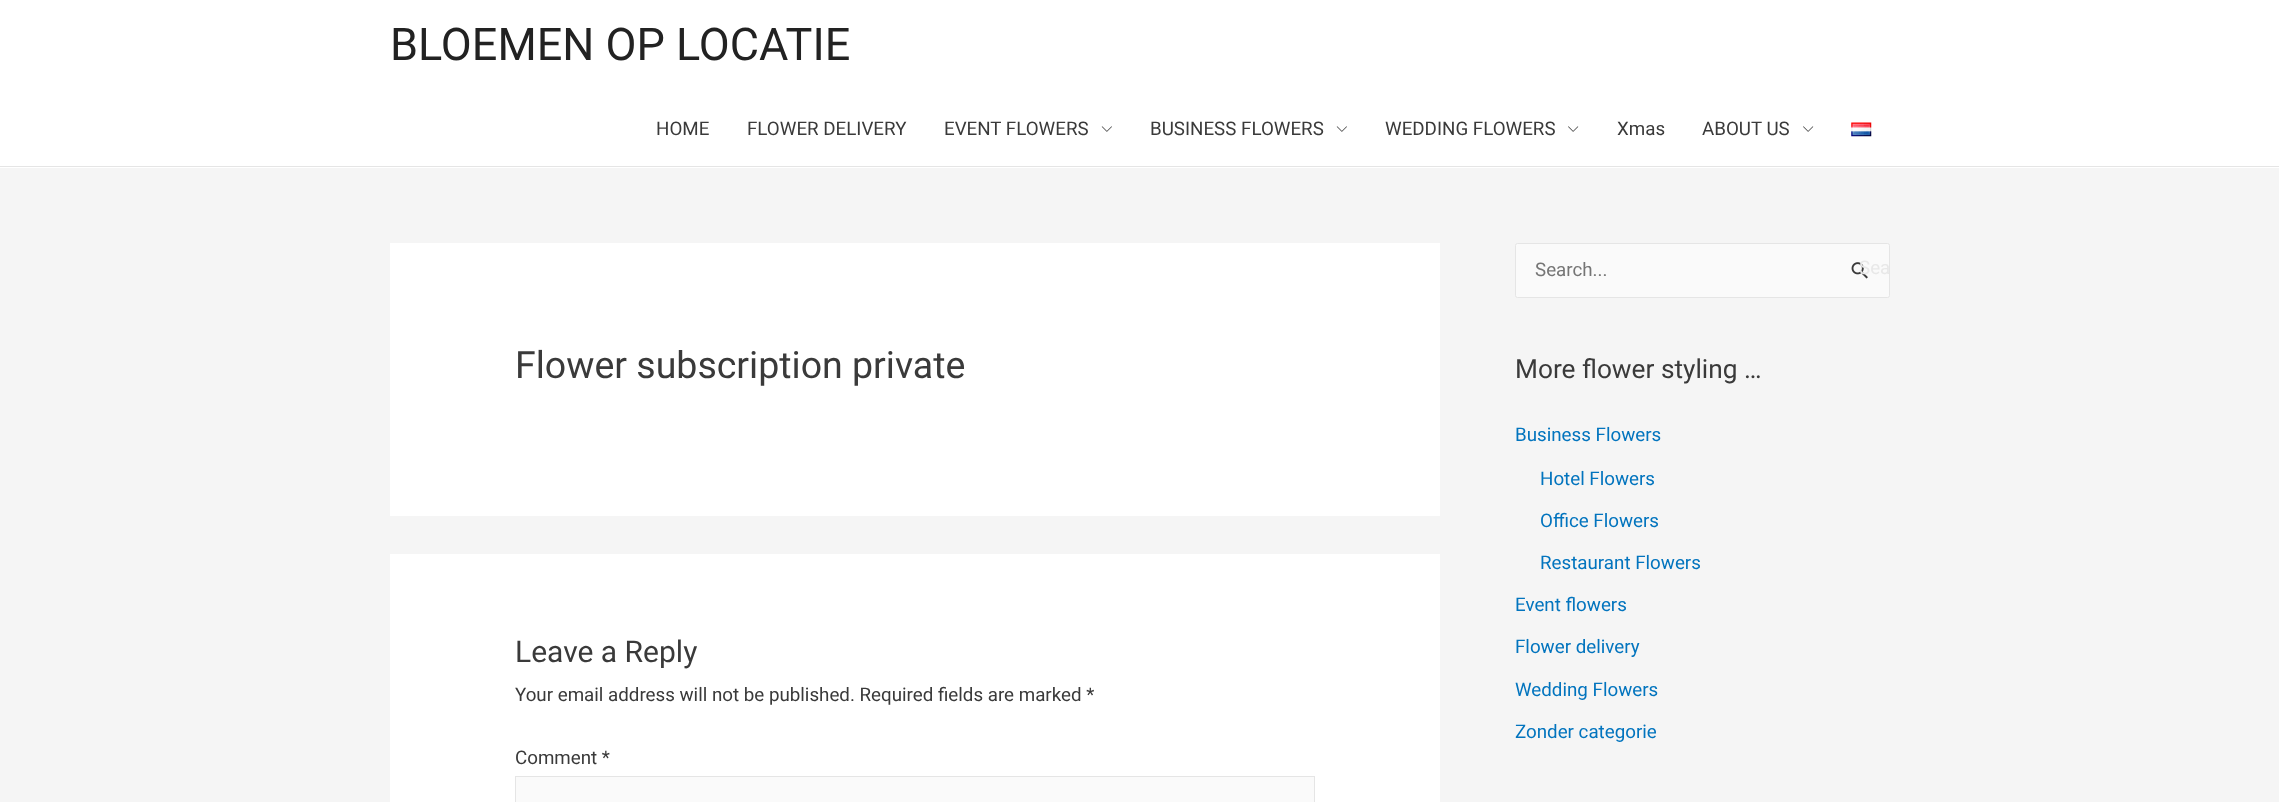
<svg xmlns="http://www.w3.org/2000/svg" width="2279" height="802">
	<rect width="100%" height="100%" fill="#F5F5F5" />
	<rect x="0" y="0" width="2279" height="168" fill="#FFFFFF" />
	<rect x="0" y="166" width="2279" height="1" fill="#E5E5E5" />
	<text x="390" y="60" font-family="Roboto" font-size="45" fill="#222222">BLOEMEN OP LOCATIE</text>
	<g font-family="Roboto" font-size="18.75" fill="#3A3A3A">
		<text x="656" y="135">HOME</text>
		<text x="747" y="135">FLOWER DELIVERY</text>
		<text x="944" y="135">EVENT FLOWERS</text>
	</g>
	<image x="1101" y="126" width="11" height="6" href="assets/img1.png" />
	<text x="1150" y="135" font-family="Roboto" font-size="18.75" fill="#3A3A3A">BUSINESS FLOWERS</text>
	<image x="1336" y="126" width="11" height="6" href="assets/img1.png" />
	<text x="1385" y="135" font-family="Roboto" font-size="18.75" fill="#3A3A3A">WEDDING FLOWERS</text>
	<image x="1568" y="126" width="11" height="6" href="assets/img2.png" />
	<g font-family="Roboto" font-size="18.75" fill="#3A3A3A">
		<text x="1617" y="135">Xmas</text>
		<text x="1702" y="135">ABOUT US</text>
	</g>
	<image x="1803" y="126" width="11" height="6" href="assets/img2.png" />
	<image x="1851" y="122" width="21" height="15" href="assets/img3.png" />
	<rect x="390" y="243" width="1050" height="273" fill="#FFFFFF" />
	<text x="515" y="378" font-family="Roboto" font-size="37.5" fill="#3A3A3A">Flower subscription private</text>
	<rect x="390" y="554" width="1050" height="248" fill="#FFFFFF" />
	<text x="515" y="662" font-family="Roboto" font-size="30" fill="#3A3A3A">Leave a Reply</text>
	<g font-family="Roboto" font-size="18.75" fill="#3A3A3A">
		<text x="515" y="701">Your email address will not be published. Required fields are marked *</text>
		<text x="515" y="764">Comment *</text>
	</g>
	<rect x="515.5" y="776.5" width="799" height="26" fill="#FAFAFA" stroke="#E5E5E5" />
	<rect x="1515.5" y="243.5" width="374" height="54" rx="2" fill="#FAFAFA" stroke="#E5E5E5" />
	<text x="1535" y="276" font-family="Roboto" font-size="18.75" fill="#757575">Search...</text>
	<image x="1851" y="262" width="17" height="17" href="assets/img4.png" />
	<text x="1859" y="274" font-family="Roboto" font-size="18.75" fill="#E8E8E8">Sea</text>
	<text x="1515" y="378" font-family="Roboto" font-size="26.25" fill="#3A3A3A">More flower styling …</text>
	<g font-family="Roboto" font-size="18.75" fill="#0274BE">
		<text x="1515" y="441">Business Flowers</text>
		<text x="1540" y="485">Hotel Flowers</text>
		<text x="1540" y="527">Office Flowers</text>
		<text x="1540" y="569">Restaurant Flowers</text>
		<text x="1515" y="611">Event flowers</text>
		<text x="1515" y="653">Flower delivery</text>
		<text x="1515" y="696">Wedding Flowers</text>
		<text x="1515" y="738">Zonder categorie</text>
	</g>
</svg>
